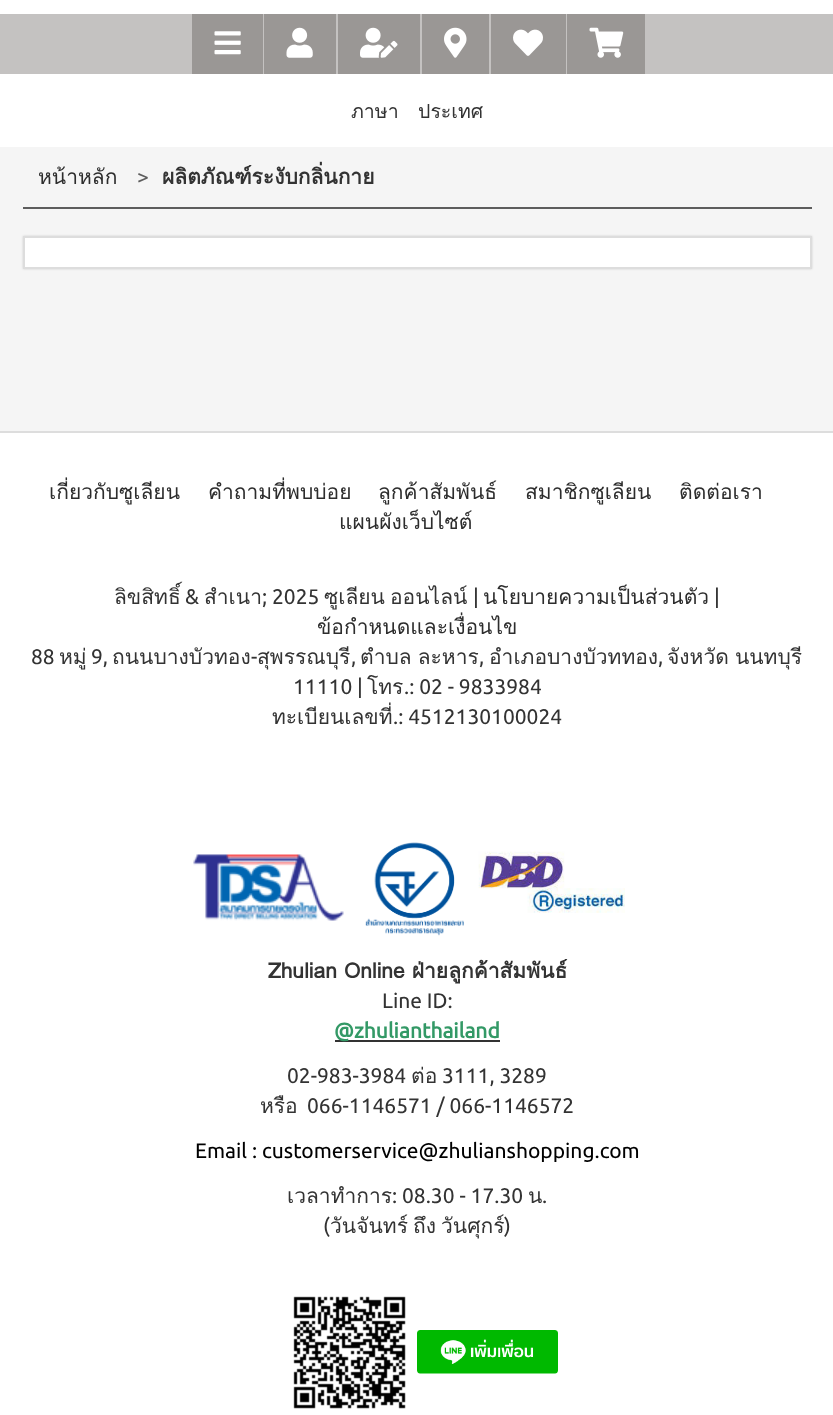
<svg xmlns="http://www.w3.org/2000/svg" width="833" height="1415">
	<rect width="100%" height="100%" fill="#FFFFFF" />
	<rect x="0" y="14" width="833" height="60" fill="#C4C2C1" />
	<rect x="192" y="14" width="71" height="60" fill="#9A9795" />
	<image x="214" y="31" width="27" height="24" href="assets/img1.png" />
	<rect x="264" y="14" width="72" height="60" fill="#9A9795" />
	<image x="286" y="27" width="27" height="31" href="assets/img2.png" />
	<rect x="338" y="14" width="82" height="60" fill="#9A9795" />
	<image x="360" y="27" width="38" height="31" href="assets/img3.png" />
	<rect x="422" y="14" width="67" height="60" fill="#9A9795" />
	<image x="444" y="27" width="23" height="31" href="assets/img4.png" />
	<rect x="491" y="14" width="75" height="60" fill="#9A9795" />
	<image x="513" y="29" width="30" height="27" href="assets/img5.png" />
	<rect x="567" y="14" width="78" height="60" fill="#9A9795" />
	<image x="589" y="27" width="35" height="31" href="assets/img6.png" />
	<g font-family="Loma" font-size="19.5" fill="#333333">
		<text x="351" y="118">ภาษา</text>
		<text x="418" y="118">ประเทศ</text>
	</g>
	<rect x="0" y="147" width="833" height="284" fill="#F5F5F5" />
	<rect x="23" y="207" width="789" height="2" fill="#5D5D5D" />
	<text x="38" y="184" font-family="Loma" font-size="21" fill="#2D2D2D">หน้าหลัก</text>
	<text x="137" y="184" font-family="Ubuntu" font-size="21" fill="#5D5D5D">&gt;</text>
	<text x="162" y="184" font-family="Loma" font-size="21" font-weight="700" fill="#333333">ผลิตภัณฑ์ระงับกลิ่นกาย</text>
	<rect x="23" y="236" width="789" height="33" fill="#000000" fill-opacity="0.15" filter="blur(1px)" />
	<rect x="24" y="237" width="787" height="31" fill="#FFFFFF" stroke="#DDDDDD" stroke-width="2" />
	<rect x="0" y="431" width="833" height="2" fill="#DDDDDD" />
	<g font-family="Loma" font-size="21" fill="#2D2D2D">
		<text x="49" y="499">เกี่ยวกับซูเลียน</text>
		<text x="208" y="499">คำถามที่พบบ่อย</text>
		<text x="378" y="499">ลูกค้าสัมพันธ์</text>
		<text x="525" y="499">สมาชิกซูเลียน</text>
		<text x="679" y="499">ติดต่อเรา</text>
		<text x="339" y="529">แผนผังเว็บไซต์</text>
	</g>
	<text x="114" y="604" font-family="Loma" font-size="21" fill="#333333">ลิขสิทธิ์</text>
	<text x="185" y="604" font-family="Ubuntu" font-size="21" fill="#333333">&amp;</text>
	<text x="204" y="604" font-family="Loma" font-size="21" fill="#333333">สำเนา</text>
	<text x="262" y="604" font-family="Ubuntu" font-size="21" fill="#333333">; 2025</text>
	<g font-family="Loma" font-size="21" fill="#333333">
		<text x="324" y="604">ซูเลียน</text>
		<text x="390" y="604">ออนไลน์</text>
	</g>
	<text x="473" y="604" font-family="Ubuntu" font-size="21" fill="#333333">|</text>
	<text x="483" y="604" font-family="Loma" font-size="21" fill="#2D2D2D">นโยบายความเป็นส่วนตัว</text>
	<text x="714" y="604" font-family="Ubuntu" font-size="21" fill="#333333">|</text>
	<text x="317" y="634" font-family="Loma" font-size="21" fill="#2D2D2D">ข้อกำหนดและเงื่อนไข</text>
	<text x="31" y="664" font-family="Ubuntu" font-size="21" fill="#333333">88</text>
	<text x="59" y="664" font-family="Loma" font-size="21" fill="#333333">หมู่</text>
	<text x="91" y="664" font-family="Ubuntu" font-size="21" fill="#333333">9,</text>
	<text x="112" y="664" font-family="Loma" font-size="21" fill="#333333">ถนนบางบัวทอง</text>
	<text x="251" y="664" font-family="Ubuntu" font-size="21" fill="#333333">-</text>
	<text x="257" y="664" font-family="Loma" font-size="21" fill="#333333">สุพรรณบุรี</text>
	<text x="351" y="664" font-family="Ubuntu" font-size="21" fill="#333333">,</text>
	<text x="360" y="664" word-spacing="-1" font-family="Loma" font-size="21" fill="#333333">ตำบล ละหาร</text>
	<text x="479" y="664" font-family="Ubuntu" font-size="21" fill="#333333">,</text>
	<text x="489" y="664" font-family="Loma" font-size="21" fill="#333333">อำเภอบางบัวททอง</text>
	<text x="658" y="664" font-family="Ubuntu" font-size="21" fill="#333333">,</text>
	<text x="667" y="664" word-spacing="-1" font-family="Loma" font-size="21" fill="#333333">จังหวัด นนทบุรี</text>
	<text x="293" y="694" font-family="Ubuntu" font-size="21" fill="#333333">11110 |</text>
	<text x="367" y="694" font-family="Loma" font-size="21" fill="#333333">โทร</text>
	<text x="404" y="694" font-family="Ubuntu" font-size="21" fill="#333333">.: 02 - 9833984</text>
	<text x="272" y="724" font-family="Loma" font-size="21" fill="#333333">ทะเบียนเลขที่</text>
	<text x="393" y="724" font-family="Ubuntu" font-size="21" fill="#333333">.: 4512130100024</text>
	<image x="193" y="854" width="151" height="67" href="assets/img7.png" />
	<image x="365" y="842" width="99" height="94" href="assets/img8.png" />
	<image x="478" y="851" width="147" height="62" href="assets/img9.png" />
	<text x="268" y="978" font-family="Loma" font-size="21" font-weight="700" fill="#333333">Zhulian Online ฝ่ายลูกค้าสัมพันธ์</text>
	<text x="382" y="1008" font-family="Ubuntu" font-size="21" fill="#333333">Line ID:</text>
	<rect x="335" y="1040" width="165" height="2" fill="#333333" />
	<text x="334" y="1038" font-family="Ubuntu" font-size="21" font-weight="700" fill="#339966">@zhulianthailand</text>
	<text x="287" y="1083" font-family="Ubuntu" font-size="21" fill="#333333">02-983-3984</text>
	<text x="411" y="1083" font-family="Loma" font-size="21" fill="#333333">ต่อ</text>
	<text x="442" y="1083" font-family="Ubuntu" font-size="21" fill="#333333">3111, 3289</text>
	<text x="260" y="1113" font-family="Loma" font-size="21" fill="#333333">หรือ</text>
	<text x="307" y="1113" font-family="Ubuntu" font-size="21" fill="#333333">066-1146571 / 066-1146572</text>
	<text x="195" y="1158" font-family="Ubuntu" font-size="21" fill="#000000">Email : customerservice@zhulianshopping.com</text>
	<text x="287" y="1203" font-family="Loma" font-size="21" fill="#333333">เวลาทำการ</text>
	<text x="392" y="1203" font-family="Ubuntu" font-size="21" fill="#333333">: 08.30 - 17.30</text>
	<text x="528" y="1203" font-family="Loma" font-size="21" fill="#333333">น</text>
	<g font-family="Ubuntu" font-size="21" fill="#333333">
		<text x="542" y="1203">.</text>
		<text x="323" y="1233">(</text>
	</g>
	<text x="330" y="1233" word-spacing="-2" font-family="Loma" font-size="21" fill="#333333">วันจันทร์ ถึง วันศุกร์</text>
	<text x="504" y="1233" font-family="Ubuntu" font-size="21" fill="#333333">)</text>
	<image x="293" y="1296" width="113" height="113" href="assets/img10.png" />
	<image x="417" y="1330" width="141" height="44" href="assets/img11.png" />
</svg>
